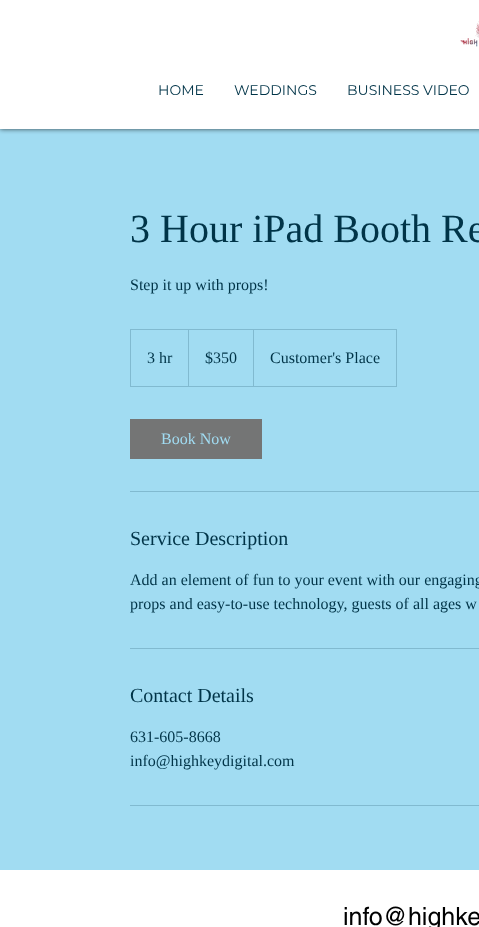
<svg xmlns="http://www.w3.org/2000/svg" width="479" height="927">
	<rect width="100%" height="100%" fill="#FFFFFF" />
	<rect x="0" y="129" width="479" height="741" fill="#A1DCF2" />
	<rect x="0" y="0" width="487" height="129" fill="#000000" fill-opacity="0.7" filter="blur(2.5px)" />
	<rect x="0" y="0" width="479" height="129" fill="#FFFFFF" />
	<image x="460" y="21" width="19" height="26" href="assets/img1.png" />
	<g font-family="Montserrat" font-size="14" fill="#003448">
		<text x="158" y="95">HOME</text>
		<text x="234" y="95">WEDDINGS</text>
		<text x="347" y="95">BUSINESS VIDEO</text>
	</g>
	<text x="130" y="242" font-family="Liberation Serif" font-size="40" fill="#003448">3 Hour iPad Booth Re</text>
	<text x="130" y="290" font-family="Liberation Serif" font-size="16" fill="#003448">Step it up with props!</text>
	<rect x="130.5" y="329.5" width="266" height="57" fill="none" stroke="#81BAD0" />
	<text x="147" y="363" font-family="Liberation Serif" font-size="16" fill="#003448">3 hr</text>
	<path d="M188 386V329L189 330V386Z" fill="#81BAD0" />
	<text x="205" y="363" font-family="Liberation Serif" font-size="16" fill="#003448">$350</text>
	<path d="M253 386V329L254 330V386Z" fill="#81BAD0" />
	<text x="270" y="363" font-family="Liberation Serif" font-size="16" fill="#003448">Customer's Place</text>
	<rect x="130" y="419" width="132" height="40" fill="#747575" />
	<text x="161" y="444" font-family="Liberation Serif" font-size="16" fill="#A1DCF2">Book Now</text>
	<rect x="130" y="491" width="349" height="1" fill="#81BAD0" />
	<text x="130" y="545" font-family="Liberation Serif" font-size="20" fill="#003448">Service Description</text>
	<g font-family="Liberation Serif" font-size="16" fill="#003448">
		<text x="130" y="585">Add an element of fun to your event with our engaging</text>
		<text x="130" y="609">props and easy-to-use technology, guests of all ages w</text>
	</g>
	<rect x="130" y="648" width="349" height="1" fill="#81BAD0" />
	<text x="130" y="702" font-family="Liberation Serif" font-size="20" fill="#003448">Contact Details</text>
	<g font-family="Liberation Serif" font-size="16" fill="#003448">
		<text x="130" y="742">631-605-8668</text>
		<text x="130" y="766">info@highkeydigital.com</text>
	</g>
	<rect x="130" y="805" width="349" height="1" fill="#81BAD0" />
	<text x="343" y="925" font-family="helvetica" font-size="25" fill="#000000">info@highke</text>
</svg>
